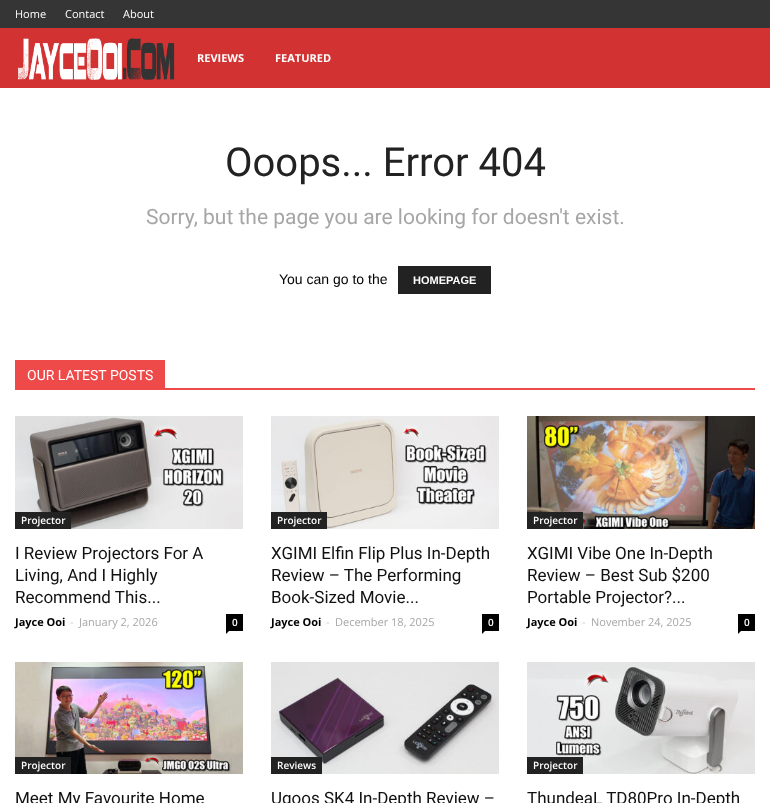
<svg xmlns="http://www.w3.org/2000/svg" width="770" height="803">
	<rect width="100%" height="100%" fill="#FFFFFF" />
	<rect x="0" y="0" width="770" height="28" fill="#353535" />
	<g font-family="Open Sans" font-size="11" fill="#FFFFFF">
		<text x="15" y="18">Home</text>
		<text x="65" y="18">Contact</text>
		<text x="123" y="18">About</text>
	</g>
	<rect x="0" y="28" width="770" height="60" fill="#D33232" />
	<image x="18" y="38" width="157" height="42" href="assets/img1.png" />
	<g font-family="Open Sans" font-size="11" font-weight="700" fill="#FFFFFF">
		<text x="197" y="62">REVIEWS</text>
		<text x="275" y="62">FEATURED</text>
	</g>
	<text x="225" y="176" font-family="Roboto" font-size="40" fill="#222222">Ooops... Error 404</text>
	<text x="146" y="224" font-family="Roboto" font-size="21" fill="#A6A6A6">Sorry, but the page you are looking for doesn't exist.</text>
	<text x="279" y="284" font-family="Liberation Sans" font-size="14" fill="#000000">You can go to the</text>
	<rect x="398" y="266" width="93" height="28" fill="#222222" />
	<text x="413" y="284" font-family="Liberation Sans" font-size="11" font-weight="700" fill="#FFFFFF">HOMEPAGE</text>
	<rect x="15" y="388" width="740" height="2" fill="#EF4A4A" />
	<rect x="15" y="360" width="150" height="28" fill="#EF4A4A" />
	<text x="27" y="380" font-family="Roboto" font-size="14" fill="#FFFFFF">OUR LATEST POSTS</text>
	<image x="15" y="416" width="228" height="113" href="assets/img2.png" />
	<rect x="15" y="512" width="56" height="17" fill="#222222" />
	<text x="21" y="524" font-family="Open Sans" font-size="10" font-weight="600" fill="#FFFFFF">Projector</text>
	<g font-family="Roboto" font-size="17" fill="#111111">
		<text x="15" y="559">I Review Projectors For A</text>
		<text x="15" y="581">Living, And I Highly</text>
		<text x="15" y="603">Recommend This...</text>
	</g>
	<text x="15" y="626" font-family="Open Sans" font-size="11" font-weight="700" fill="#000000">Jayce Ooi</text>
	<text x="70" y="626" font-family="Open Sans" font-size="11" fill="#CCCCCC">-</text>
	<text x="79" y="626" font-family="Open Sans" font-size="11" fill="#A6A6A6">January 2, 2026</text>
	<rect x="226" y="614" width="17" height="17" fill="#000000" />
	<text x="232" y="626" font-family="Open Sans" font-size="10" font-weight="600" fill="#FFFFFF">0</text>
	<path d="M226 631H229L226 634Z" fill="#000000" />
	<image x="271" y="416" width="228" height="113" href="assets/img3.png" />
	<rect x="271" y="512" width="56" height="17" fill="#222222" />
	<text x="277" y="524" font-family="Open Sans" font-size="10" font-weight="600" fill="#FFFFFF">Projector</text>
	<g font-family="Roboto" font-size="17" fill="#111111">
		<text x="271" y="559">XGIMI Elfin Flip Plus In-Depth</text>
		<text x="271" y="581">Review – The Performing</text>
		<text x="271" y="603">Book-Sized Movie...</text>
	</g>
	<text x="271" y="626" font-family="Open Sans" font-size="11" font-weight="700" fill="#000000">Jayce Ooi</text>
	<text x="326" y="626" font-family="Open Sans" font-size="11" fill="#CCCCCC">-</text>
	<text x="335" y="626" font-family="Open Sans" font-size="11" fill="#A6A6A6">December 18, 2025</text>
	<rect x="482" y="614" width="17" height="17" fill="#000000" />
	<text x="488" y="626" font-family="Open Sans" font-size="10" font-weight="600" fill="#FFFFFF">0</text>
	<path d="M482 631H485L482 634Z" fill="#000000" />
	<image x="527" y="416" width="228" height="113" href="assets/img4.png" />
	<rect x="527" y="512" width="56" height="17" fill="#222222" />
	<text x="533" y="524" font-family="Open Sans" font-size="10" font-weight="600" fill="#FFFFFF">Projector</text>
	<g font-family="Roboto" font-size="17" fill="#111111">
		<text x="527" y="559">XGIMI Vibe One In-Depth</text>
		<text x="527" y="581">Review – Best Sub $200</text>
		<text x="527" y="603">Portable Projector?...</text>
	</g>
	<text x="527" y="626" font-family="Open Sans" font-size="11" font-weight="700" fill="#000000">Jayce Ooi</text>
	<text x="582" y="626" font-family="Open Sans" font-size="11" fill="#CCCCCC">-</text>
	<text x="591" y="626" font-family="Open Sans" font-size="11" fill="#A6A6A6">November 24, 2025</text>
	<rect x="738" y="614" width="17" height="17" fill="#000000" />
	<text x="744" y="626" font-family="Open Sans" font-size="10" font-weight="600" fill="#FFFFFF">0</text>
	<path d="M738 631H741L738 634Z" fill="#000000" />
	<image x="15" y="662" width="228" height="112" href="assets/img5.png" />
	<rect x="15" y="757" width="56" height="17" fill="#222222" />
	<text x="21" y="769" font-family="Open Sans" font-size="10" font-weight="600" fill="#FFFFFF">Projector</text>
	<text x="15" y="804" font-family="Roboto" font-size="17" fill="#111111">Meet My Favourite Home</text>
	<image x="271" y="662" width="228" height="112" href="assets/img6.png" />
	<rect x="271" y="757" width="51" height="17" fill="#222222" />
	<text x="277" y="769" font-family="Open Sans" font-size="10" font-weight="600" fill="#FFFFFF">Reviews</text>
	<text x="271" y="804" font-family="Roboto" font-size="17" fill="#111111">Ugoos SK4 In-Depth Review –</text>
	<image x="527" y="662" width="228" height="112" href="assets/img7.png" />
	<rect x="527" y="757" width="56" height="17" fill="#222222" />
	<text x="533" y="769" font-family="Open Sans" font-size="10" font-weight="600" fill="#FFFFFF">Projector</text>
	<text x="527" y="804" font-family="Roboto" font-size="17" fill="#111111">ThundeaL TD80Pro In-Depth</text>
</svg>
